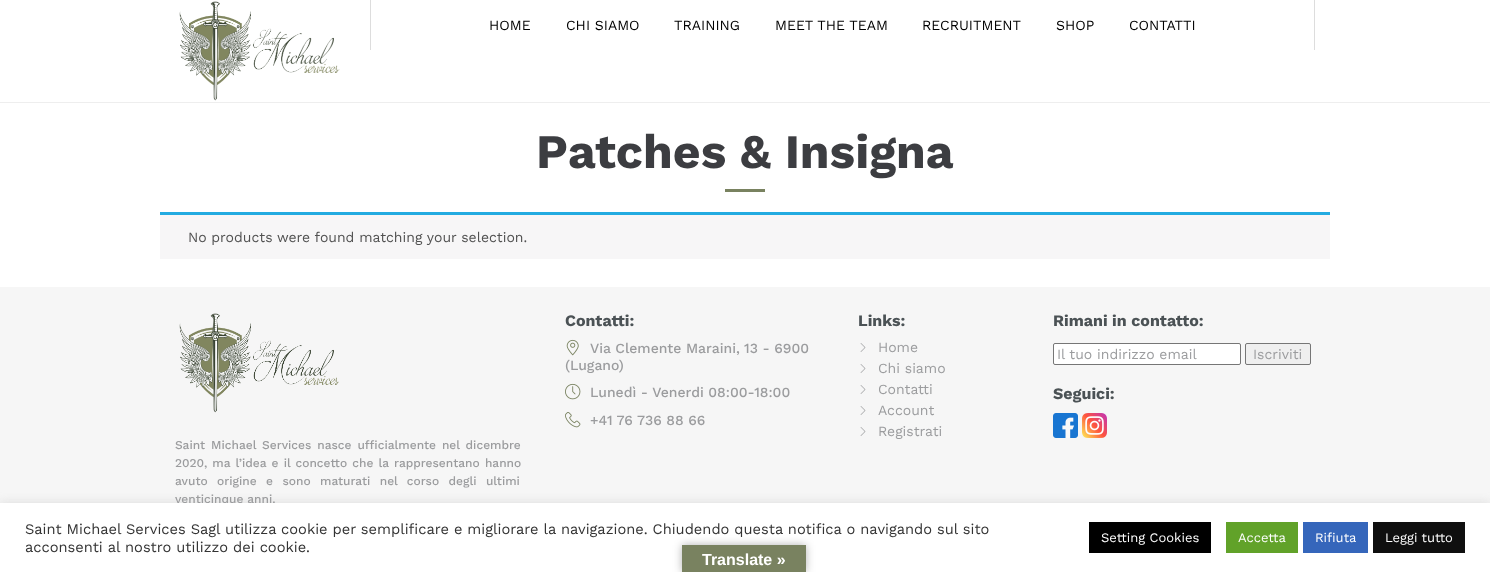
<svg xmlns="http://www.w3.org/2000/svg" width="1490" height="572">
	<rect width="100%" height="100%" fill="#FFFFFF" />
	<rect x="0" y="102" width="1490" height="1" fill="#EEEEEE" />
	<image x="179" y="1" width="161" height="100" href="assets/img1.png" />
	<rect x="1314" y="0" width="1" height="50" fill="#DDDDDD" />
	<rect x="370" y="0" width="1" height="50" fill="#DDDDDD" />
	<g font-family="Work Sans" font-size="14" fill="#000000">
		<text x="489" y="30">HOME</text>
		<text x="566" y="30">CHI SIAMO</text>
		<text x="674" y="30">TRAINING</text>
		<text x="775" y="30">MEET THE TEAM</text>
		<text x="922" y="30">RECRUITMENT</text>
		<text x="1056" y="30">SHOP</text>
		<text x="1129" y="30">CONTATTI</text>
	</g>
	<text x="536" y="168" font-family="Work Sans" font-size="48" font-weight="700" fill="#3C3D41">Patches &amp; Insigna</text>
	<rect x="725" y="189" width="40" height="3" fill="#798260" />
	<rect x="160" y="215" width="1170" height="44" fill="#F7F6F7" />
	<rect x="160" y="212" width="1170" height="3" fill="#23ABE1" />
	<text x="188" y="242" font-family="Work Sans" font-size="14" fill="#515151">No products were found matching your selection.</text>
	<rect x="0" y="287" width="1490" height="216" fill="#F6F6F6" />
	<text x="565" y="326" font-family="Work Sans" font-size="16" font-weight="700" fill="#4B5255">Contatti:</text>
	<image x="566" y="339" width="13" height="17" href="assets/img2.png" />
	<g font-family="Work Sans" font-size="14" font-weight="500" fill="#9B9C9E">
		<text x="590" y="353">Via Clemente Maraini, 13 - 6900</text>
		<text x="565" y="370">(Lugano)</text>
	</g>
	<image x="565" y="383" width="16" height="17" href="assets/img3.png" />
	<text x="590" y="397" font-family="Work Sans" font-size="14" font-weight="500" fill="#9B9C9E">Lunedì - Venerdi 08:00-18:00</text>
	<image x="565" y="412" width="16" height="16" href="assets/img4.png" />
	<text x="590" y="425" font-family="Work Sans" font-size="14" font-weight="500" fill="#9B9C9E">+41 76 736 88 66</text>
	<text x="858" y="326" font-family="Work Sans" font-size="16" font-weight="700" fill="#4B5255">Links:</text>
	<image x="860" y="343" width="6" height="9" href="assets/img5.png" />
	<text x="878" y="352" font-family="Work Sans" font-size="14" fill="#9B9C9E">Home</text>
	<image x="860" y="364" width="6" height="9" href="assets/img5.png" />
	<text x="878" y="373" font-family="Work Sans" font-size="14" fill="#9B9C9E">Chi siamo</text>
	<image x="860" y="385" width="6" height="9" href="assets/img5.png" />
	<text x="878" y="394" font-family="Work Sans" font-size="14" fill="#9B9C9E">Contatti</text>
	<image x="860" y="406" width="6" height="9" href="assets/img5.png" />
	<text x="878" y="415" font-family="Work Sans" font-size="14" fill="#9B9C9E">Account</text>
	<image x="860" y="427" width="6" height="9" href="assets/img5.png" />
	<text x="878" y="436" font-family="Work Sans" font-size="14" fill="#9B9C9E">Registrati</text>
	<text x="1053" y="326" font-family="Work Sans" font-size="16" font-weight="700" fill="#4B5255">Rimani in contatto:</text>
	<rect x="1053.5" y="343.5" width="187" height="21" rx="1.5" fill="#FFFFFF" stroke="#767676" />
	<text x="1057" y="359" font-family="Work Sans" font-size="14" fill="#9B9C9E">Il tuo indirizzo email</text>
	<rect x="1245.5" y="343.5" width="65" height="21" rx="1.5" fill="#EFEFEF" stroke="#767676" />
	<text x="1253" y="359" font-family="Work Sans" font-size="14" fill="#9B9C9E">Iscriviti</text>
	<text x="1053" y="399" font-family="Work Sans" font-size="16" font-weight="700" fill="#4B5255">Seguici:</text>
	<image x="1053" y="413" width="25" height="25" href="assets/img6.png" />
	<image x="1082" y="413" width="25" height="25" href="assets/img7.png" />
	<image x="179" y="313" width="160" height="100" href="assets/img8.png" />
	<g font-family="Work Sans" font-size="12" font-weight="500" fill="#9B9C9E">
		<text x="175" y="449" word-spacing="2">Saint Michael Services nasce ufficialmente nel dicembre</text>
		<text x="175" y="467" word-spacing="1.25">2020, ma l’idea e il concetto che la rappresentano hanno</text>
		<text x="175" y="485" word-spacing="5.5">avuto origine e sono maturati nel corso degli ultimi</text>
		<text x="175" y="503">venticinque anni.</text>
	</g>
	<rect x="0" y="502" width="1490" height="69" fill="#ACABAB" fill-opacity="0.3" filter="blur(5px)" />
	<rect x="0" y="503" width="1490" height="69" fill="#FFFFFF" />
	<g font-family="Work Sans" font-size="14.67" fill="#333333">
		<text x="25" y="534">Saint Michael Services Sagl utilizza cookie per semplificare e migliorare la navigazione. Chiudendo questa notifica o navigando sul sito</text>
		<text x="25" y="552">acconsenti al nostro utilizzo dei cookie.</text>
	</g>
	<rect x="1089" y="522" width="122" height="31" fill="#000000" />
	<text x="1101" y="542" font-family="Work Sans" font-size="13" fill="#FFFFFF">Setting Cookies</text>
	<rect x="1226" y="522" width="72" height="31" fill="#61A229" />
	<text x="1238" y="542" font-family="Work Sans" font-size="13" fill="#FFFFFF">Accetta</text>
	<rect x="1303" y="522" width="65" height="31" fill="#3566BB" />
	<text x="1315" y="542" font-family="Work Sans" font-size="13" fill="#FFFFFF">Rifiuta</text>
	<rect x="1373" y="522" width="92" height="31" fill="#0F0F0F" />
	<text x="1385" y="542" font-family="Work Sans" font-size="13" fill="#FFFFFF">Leggi tutto</text>
	<rect x="682" y="545" width="124" height="27" fill="#000000" fill-opacity="0.3" filter="blur(4.5px)" />
	<rect x="682" y="545" width="124" height="27" fill="#798260" />
	<text x="702" y="565" font-family="Liberation Sans" font-size="16" font-weight="700" fill="#FFFFFF">Translate »</text>
</svg>
